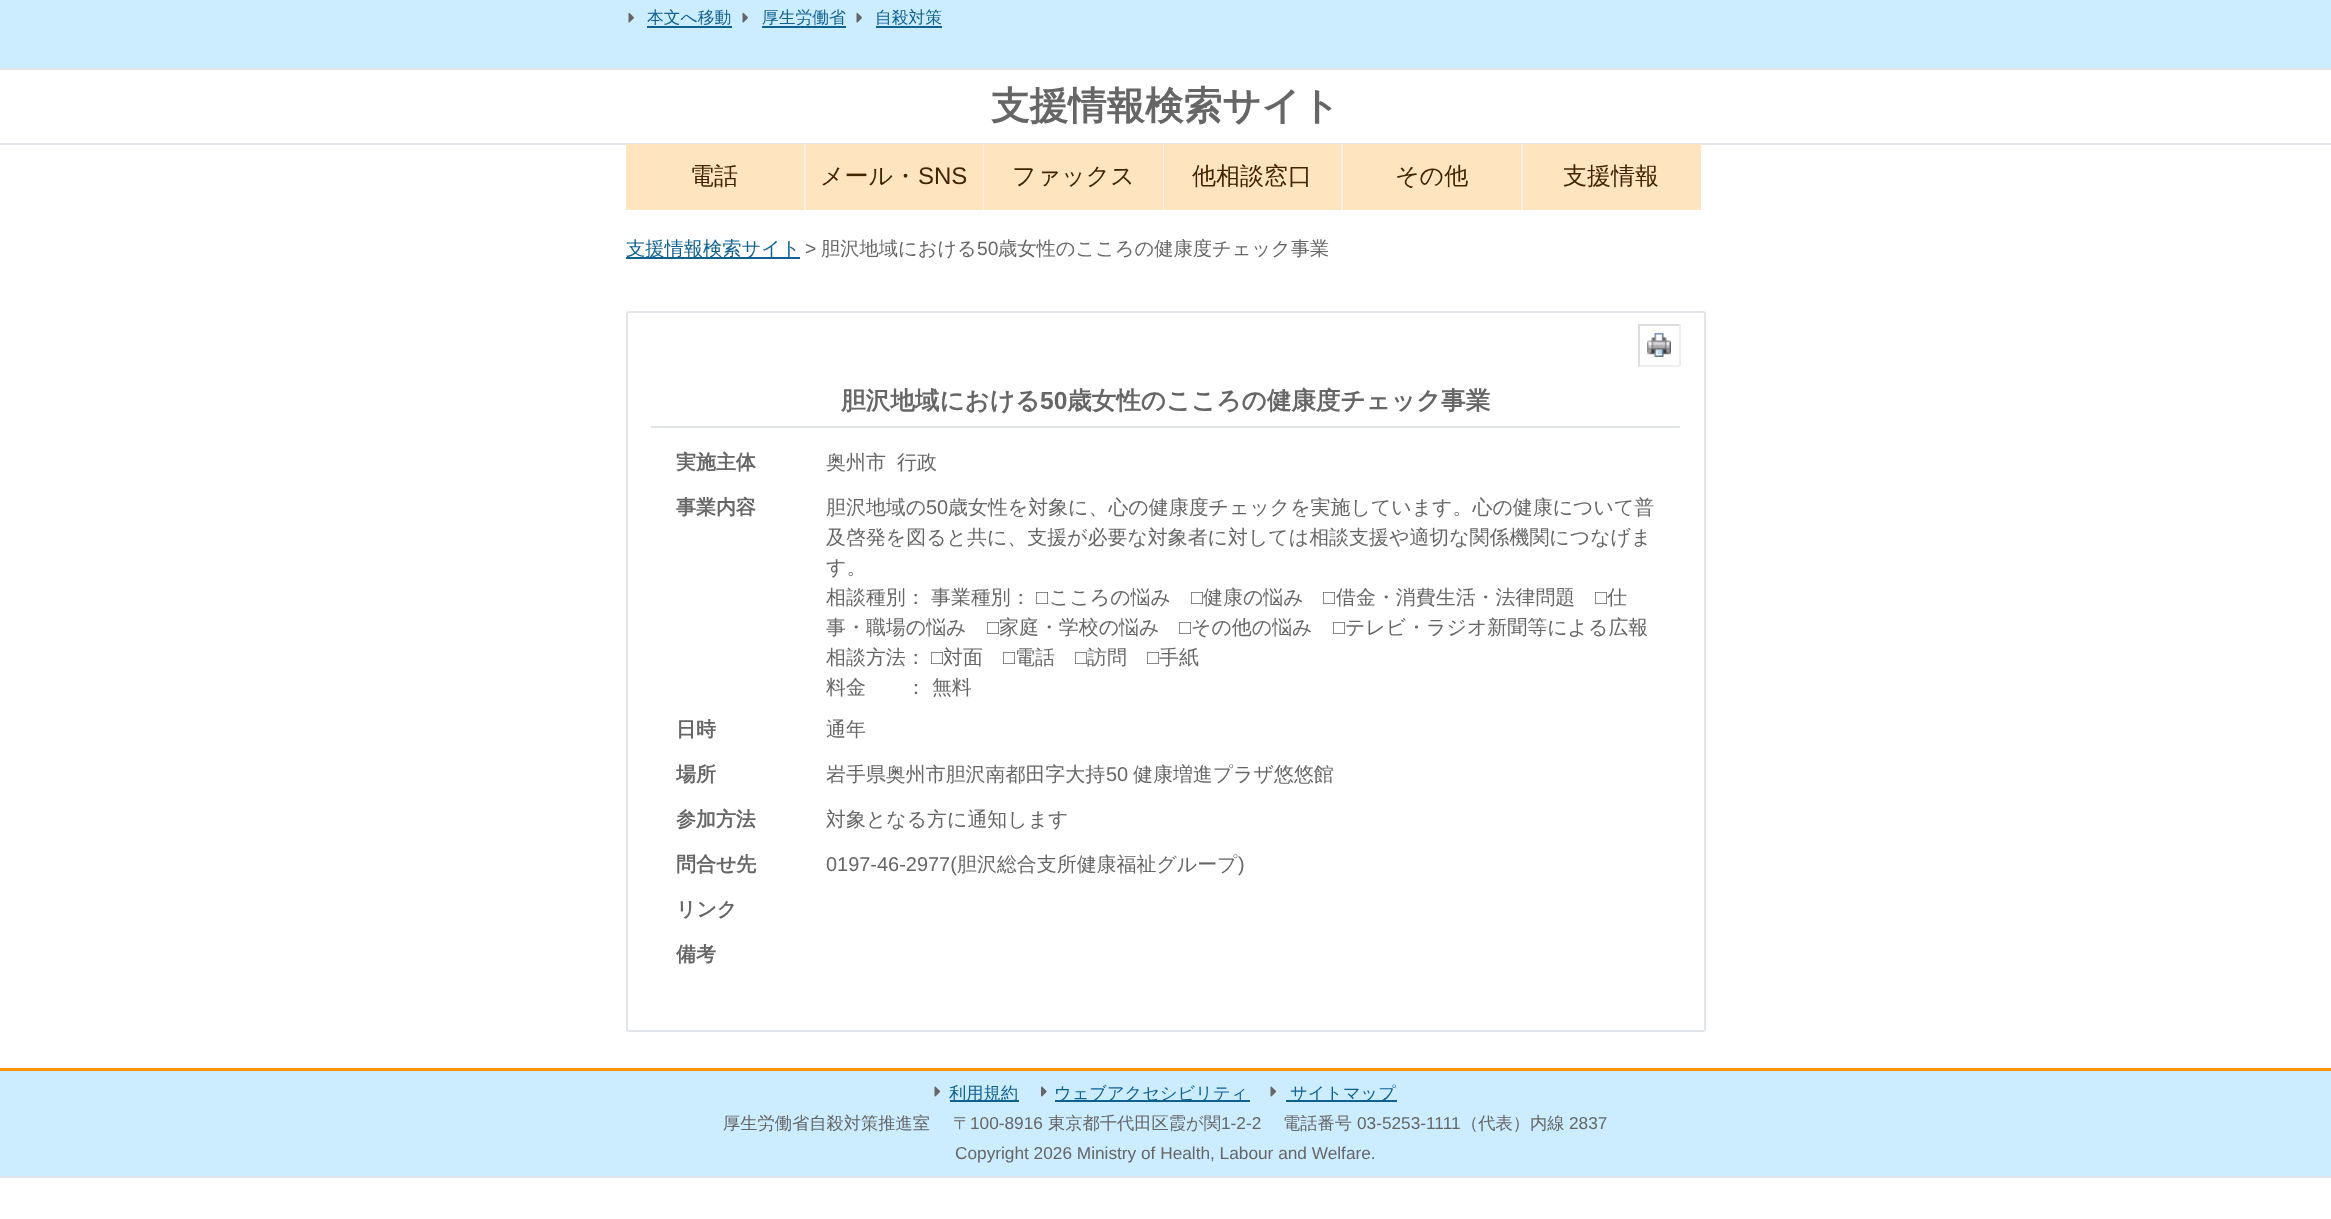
<svg xmlns="http://www.w3.org/2000/svg" width="2331" height="1219">
	<rect width="100%" height="100%" fill="#FFFFFF" />
	<rect x="0" y="0" width="2331" height="68" fill="#CCECFF" />
	<rect x="0" y="68" width="2331" height="2" fill="#E1E4E8" />
	<image x="628" y="12" width="6" height="11" href="assets/img1.png" />
	<text x="647" y="23" font-family="WenQuanYi Zen Hei" font-size="16.75" font-weight="500" fill="#106090">本文へ移動</text>
	<rect x="647" y="26" width="85" height="2" fill="#106090" />
	<image x="742" y="12" width="6" height="11" href="assets/img1.png" />
	<text x="762" y="23" font-family="WenQuanYi Zen Hei" font-size="16.75" font-weight="500" fill="#106090">厚生労働省</text>
	<rect x="762" y="26" width="84" height="2" fill="#106090" />
	<image x="856" y="12" width="6" height="11" href="assets/img1.png" />
	<text x="875" y="23" font-family="WenQuanYi Zen Hei" font-size="16.75" font-weight="500" fill="#106090">自殺対策</text>
	<rect x="876" y="26" width="66" height="2" fill="#106090" />
	<rect x="0" y="143" width="2331" height="2" fill="#E1E4E8" />
	<text x="991" y="119" font-family="WenQuanYi Zen Hei" font-size="38.5" font-weight="700" fill="#666666">支援情報検索サイト</text>
	<rect x="626" y="144" width="178" height="66" fill="#FFE4C0" />
	<rect x="804" y="144" width="2" height="66" fill="#FFEFE6" />
	<text x="690" y="184" font-family="WenQuanYi Zen Hei" font-size="24" font-weight="500" fill="#402500">電話</text>
	<rect x="806" y="144" width="177" height="66" fill="#FFE4C0" />
	<rect x="983" y="144" width="1" height="66" fill="#FFEFE6" />
	<text x="820" y="184" font-family="WenQuanYi Zen Hei" font-size="24" font-weight="500" fill="#402500">メール・</text>
	<text x="918" y="184" font-family="Liberation Sans" font-size="24" fill="#402500">SNS</text>
	<rect x="984" y="144" width="179" height="66" fill="#FFE4C0" />
	<rect x="1163" y="144" width="1" height="66" fill="#FFEFE6" />
	<text x="1012" y="184" font-family="WenQuanYi Zen Hei" font-size="24" font-weight="500" fill="#402500">ファックス</text>
	<rect x="1164" y="144" width="177" height="66" fill="#FFE4C0" />
	<rect x="1341" y="144" width="2" height="66" fill="#FFEFE6" />
	<text x="1192" y="184" font-family="WenQuanYi Zen Hei" font-size="24" font-weight="500" fill="#402500">他相談窓口</text>
	<rect x="1343" y="144" width="178" height="66" fill="#FFE4C0" />
	<rect x="1521" y="144" width="2" height="66" fill="#FFEFE6" />
	<text x="1395" y="184" font-family="WenQuanYi Zen Hei" font-size="24" font-weight="500" fill="#402500">その他</text>
	<rect x="1523" y="144" width="178" height="66" fill="#FFE4C0" />
	<text x="1563" y="184" font-family="WenQuanYi Zen Hei" font-size="24" font-weight="500" fill="#402500">支援情報</text>
	<rect x="626" y="257" width="174" height="2" fill="#106090" />
	<text x="626" y="255" font-family="WenQuanYi Zen Hei" font-size="19.25" font-weight="500" fill="#106090">支援情報検索サイト</text>
	<text x="805" y="255" font-family="Liberation Sans" font-size="19.25" fill="#666666">&gt;</text>
	<text x="821" y="255" font-family="WenQuanYi Zen Hei" font-size="19.25" font-weight="500" fill="#666666">胆沢地域における</text>
	<text x="977" y="255" font-family="Liberation Sans" font-size="19.25" fill="#666666">50</text>
	<text x="998" y="255" font-family="WenQuanYi Zen Hei" font-size="19.25" font-weight="500" fill="#666666">歳女性のこころの健康度チェック事業</text>
	<rect x="627" y="312" width="1078" height="719" rx="2" fill="none" stroke="#E1E4E8" stroke-width="2" />
	<rect x="1638" y="324" width="42" height="2" fill="#DDDDDD" />
	<rect x="1679" y="324" width="2" height="42" fill="#EEEEEE" />
	<rect x="1638" y="365" width="42" height="2" fill="#EEEEEE" />
	<rect x="1638" y="324" width="2" height="42" fill="#DDDDDD" />
	<image x="1647" y="333" width="24" height="24" href="assets/img2.png" />
	<rect x="651" y="426" width="1029" height="2" fill="#E1E4E8" />
	<text x="841" y="409" font-family="WenQuanYi Zen Hei" font-size="24.6" font-weight="700" fill="#666666">胆沢地域における</text>
	<text x="1040" y="409" font-family="Liberation Sans" font-size="24.6" font-weight="700" fill="#666666">50</text>
	<text x="1067" y="409" font-family="WenQuanYi Zen Hei" font-size="24.6" font-weight="700" fill="#666666">歳女性のこころの健康度チェック事業</text>
	<text x="676" y="469" font-family="WenQuanYi Zen Hei" font-size="19.95" font-weight="700" fill="#666666">実施主体</text>
	<g font-family="WenQuanYi Zen Hei" font-size="19.95" font-weight="500" fill="#666666">
		<text x="826" y="469">奥州市</text>
		<text x="897" y="469">行政</text>
	</g>
	<text x="676" y="514" font-family="WenQuanYi Zen Hei" font-size="19.95" font-weight="700" fill="#666666">事業内容</text>
	<text x="826" y="514" font-family="WenQuanYi Zen Hei" font-size="19.95" font-weight="500" fill="#666666">胆沢地域の</text>
	<text x="926" y="514" font-family="Liberation Sans" font-size="19.95" fill="#666666">50</text>
	<g font-family="WenQuanYi Zen Hei" font-size="19.95" font-weight="500" fill="#666666">
		<text x="948" y="514">歳女性を対象に、心の健康度チェックを実施しています。心の健康について普</text>
		<text x="826" y="544">及啓発を図ると共に、支援が必要な対象者に対しては相談支援や適切な関係機関につなげま</text>
		<text x="826" y="574">す。</text>
		<text x="826" y="604">相談種別：</text>
		<text x="931" y="604">事業種別：</text>
	</g>
	<text x="1036" y="604" font-family="Liberation Sans" font-size="19.95" fill="#666666">□</text>
	<text x="1049" y="604" font-family="WenQuanYi Zen Hei" font-size="19.95" font-weight="500" fill="#666666">こころの悩み</text>
	<text x="1191" y="604" font-family="Liberation Sans" font-size="19.95" fill="#666666">□</text>
	<text x="1203" y="604" font-family="WenQuanYi Zen Hei" font-size="19.95" font-weight="500" fill="#666666">健康の悩み</text>
	<text x="1323" y="604" font-family="Liberation Sans" font-size="19.95" fill="#666666">□</text>
	<text x="1336" y="604" font-family="WenQuanYi Zen Hei" font-size="19.95" font-weight="500" fill="#666666">借金・消費生活・法律問題</text>
	<text x="1595" y="604" font-family="Liberation Sans" font-size="19.95" fill="#666666">□</text>
	<g font-family="WenQuanYi Zen Hei" font-size="19.95" font-weight="500" fill="#666666">
		<text x="1607" y="604">仕</text>
		<text x="826" y="634">事・職場の悩み</text>
	</g>
	<text x="987" y="634" font-family="Liberation Sans" font-size="19.95" fill="#666666">□</text>
	<text x="999" y="634" font-family="WenQuanYi Zen Hei" font-size="19.95" font-weight="500" fill="#666666">家庭・学校の悩み</text>
	<text x="1179" y="634" font-family="Liberation Sans" font-size="19.95" fill="#666666">□</text>
	<text x="1191" y="634" font-family="WenQuanYi Zen Hei" font-size="19.95" font-weight="500" fill="#666666">その他の悩み</text>
	<text x="1333" y="634" font-family="Liberation Sans" font-size="19.95" fill="#666666">□</text>
	<g font-family="WenQuanYi Zen Hei" font-size="19.95" font-weight="500" fill="#666666">
		<text x="1345" y="634">テレビ・ラジオ新聞等による広報</text>
		<text x="826" y="664">相談方法：</text>
	</g>
	<text x="931" y="664" font-family="Liberation Sans" font-size="19.95" fill="#666666">□</text>
	<text x="943" y="664" font-family="WenQuanYi Zen Hei" font-size="19.95" font-weight="500" fill="#666666">対面</text>
	<text x="1003" y="664" font-family="Liberation Sans" font-size="19.95" fill="#666666">□</text>
	<text x="1015" y="664" font-family="WenQuanYi Zen Hei" font-size="19.95" font-weight="500" fill="#666666">電話</text>
	<text x="1075" y="664" font-family="Liberation Sans" font-size="19.95" fill="#666666">□</text>
	<text x="1087" y="664" font-family="WenQuanYi Zen Hei" font-size="19.95" font-weight="500" fill="#666666">訪問</text>
	<text x="1147" y="664" font-family="Liberation Sans" font-size="19.95" fill="#666666">□</text>
	<g font-family="WenQuanYi Zen Hei" font-size="19.95" font-weight="500" fill="#666666">
		<text x="1159" y="664">手紙</text>
		<text x="826" y="694">料金</text>
		<text x="906" y="694">： 無料</text>
	</g>
	<text x="676" y="736" font-family="WenQuanYi Zen Hei" font-size="19.95" font-weight="700" fill="#666666">日時</text>
	<text x="826" y="736" font-family="WenQuanYi Zen Hei" font-size="19.95" font-weight="500" fill="#666666">通年</text>
	<text x="676" y="781" font-family="WenQuanYi Zen Hei" font-size="19.95" font-weight="700" fill="#666666">場所</text>
	<text x="826" y="781" font-family="WenQuanYi Zen Hei" font-size="19.95" font-weight="500" fill="#666666">岩手県奥州市胆沢南都田字大持</text>
	<text x="1106" y="781" font-family="Liberation Sans" font-size="19.95" fill="#666666">50</text>
	<text x="1133" y="781" font-family="WenQuanYi Zen Hei" font-size="19.95" font-weight="500" fill="#666666">健康増進プラザ悠悠館</text>
	<text x="676" y="826" font-family="WenQuanYi Zen Hei" font-size="19.95" font-weight="700" fill="#666666">参加方法</text>
	<text x="826" y="826" font-family="WenQuanYi Zen Hei" font-size="19.95" font-weight="500" fill="#666666">対象となる方に通知します</text>
	<text x="676" y="871" font-family="WenQuanYi Zen Hei" font-size="19.95" font-weight="700" fill="#666666">問合せ先</text>
	<text x="826" y="871" font-family="Liberation Sans" font-size="19.95" fill="#666666">0197-46-2977(</text>
	<text x="957" y="871" font-family="WenQuanYi Zen Hei" font-size="19.95" font-weight="500" fill="#666666">胆沢総合支所健康福祉グループ</text>
	<text x="1238" y="871" font-family="Liberation Sans" font-size="19.95" fill="#666666">)</text>
	<g font-family="WenQuanYi Zen Hei" font-size="19.95" font-weight="700" fill="#666666">
		<text x="676" y="916">リンク</text>
		<text x="676" y="961">備考</text>
	</g>
	<rect x="0" y="1071" width="2331" height="105" fill="#CCECFF" />
	<rect x="0" y="1176" width="2331" height="2" fill="#E1E4E8" />
	<rect x="0" y="1068" width="2331" height="3" fill="#FF9300" />
	<image x="934" y="1086" width="7" height="11" href="assets/img3.png" />
	<rect x="950" y="1100" width="69" height="2" fill="#106090" />
	<text x="949" y="1099" font-family="WenQuanYi Zen Hei" font-size="17.25" font-weight="500" fill="#106090">利用規約</text>
	<image x="1041" y="1086" width="6" height="11" href="assets/img4.png" />
	<rect x="1055" y="1100" width="195" height="2" fill="#106090" />
	<text x="1054" y="1099" font-family="WenQuanYi Zen Hei" font-size="17.25" font-weight="500" fill="#106090">ウェブアクセシビリティ</text>
	<image x="1270" y="1086" width="7" height="11" href="assets/img3.png" />
	<rect x="1286" y="1100" width="111" height="2" fill="#106090" />
	<text x="1290" y="1099" font-family="WenQuanYi Zen Hei" font-size="17.25" font-weight="500" fill="#106090">サイトマップ</text>
	<g font-family="WenQuanYi Zen Hei" font-size="17.25" font-weight="500" fill="#666666">
		<text x="723" y="1129">厚生労働省自殺対策推進室</text>
		<text x="953" y="1129">〒</text>
	</g>
	<text x="970" y="1129" font-family="Liberation Sans" font-size="17.25" fill="#666666">100-8916</text>
	<text x="1048" y="1129" font-family="WenQuanYi Zen Hei" font-size="17.25" font-weight="500" fill="#666666">東京都千代田区霞が関</text>
	<text x="1221" y="1129" font-family="Liberation Sans" font-size="17.25" fill="#666666">1-2-2</text>
	<text x="1283" y="1129" font-family="WenQuanYi Zen Hei" font-size="17.25" font-weight="500" fill="#666666">電話番号</text>
	<text x="1357" y="1129" font-family="Liberation Sans" font-size="17.25" fill="#666666">03-5253-1111</text>
	<text x="1461" y="1129" font-family="WenQuanYi Zen Hei" font-size="17.25" font-weight="500" fill="#666666">（代表）内線</text>
	<g font-family="Liberation Sans" font-size="17.25" fill="#666666">
		<text x="1569" y="1129">2837</text>
		<text x="955" y="1159">Copyright 2026 Ministry of Health, Labour and Welfare.</text>
	</g>
</svg>
